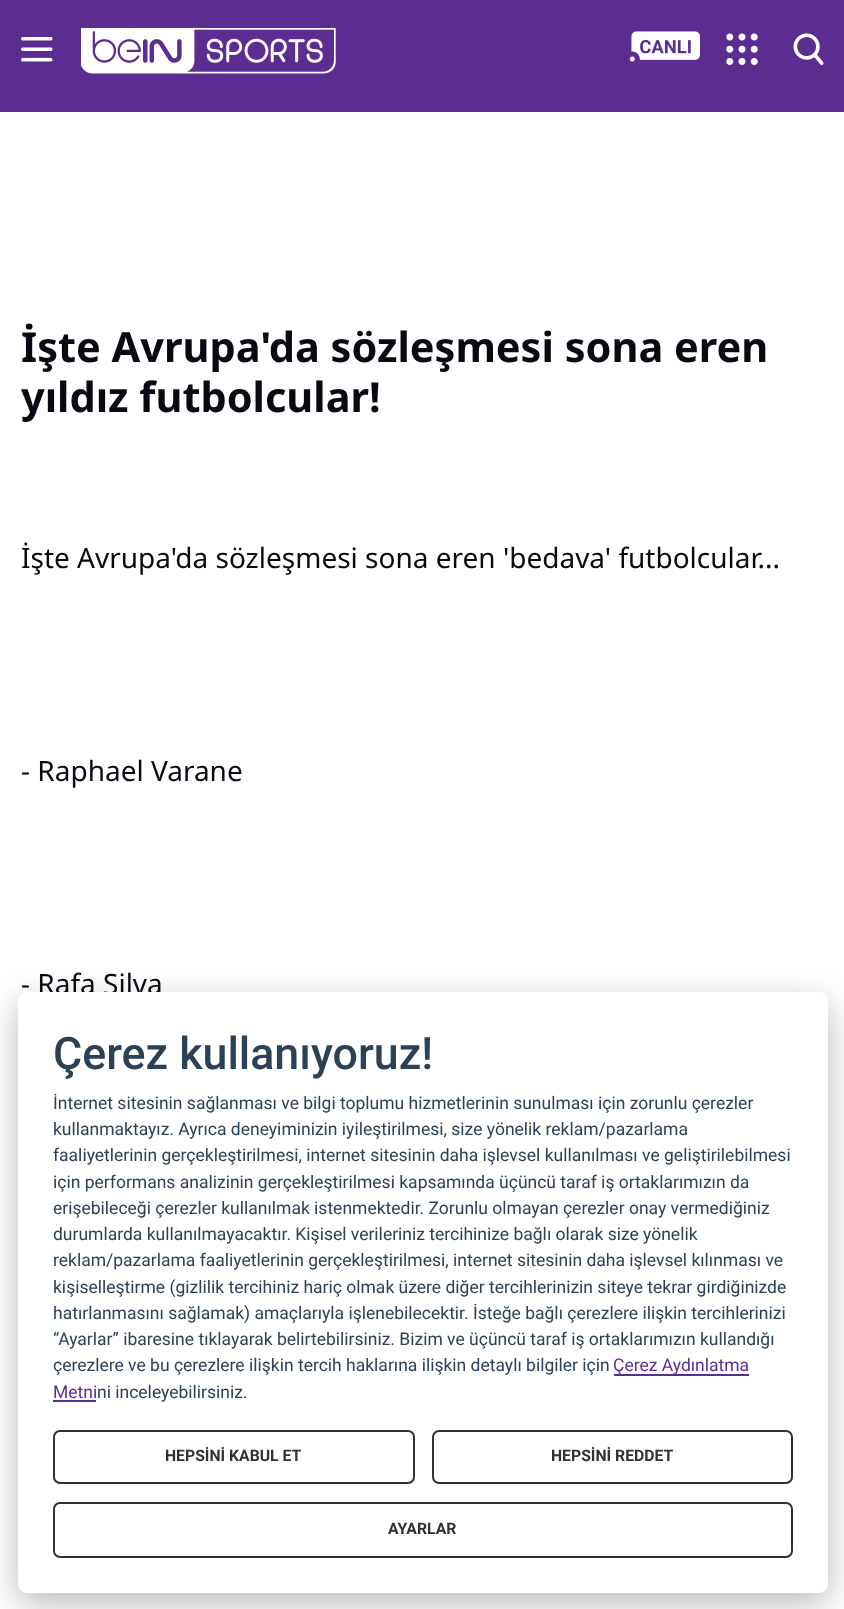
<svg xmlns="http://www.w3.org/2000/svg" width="844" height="1609">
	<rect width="100%" height="100%" fill="#FFFFFF" />
	<rect x="0" y="0" width="844" height="112" fill="#5C2D91" />
	<image x="21" y="37" width="32" height="25" href="assets/img1.png" />
	<image x="81" y="28" width="255" height="46" href="assets/img2.png" />
	<image x="629" y="31" width="71" height="31" href="assets/img3.png" />
	<image x="726" y="33" width="32" height="32" href="assets/img4.png" />
	<image x="793" y="33" width="31" height="32" href="assets/img5.png" />
	<g font-family="Noto Sans" font-size="41.5" font-weight="700" fill="#0A0912">
		<text x="21" y="362">İşte Avrupa'da sözleşmesi sona eren</text>
		<text x="21" y="412">yıldız futbolcular!</text>
	</g>
	<g font-family="Noto Sans" font-size="28" fill="#0A0912">
		<text x="21" y="568">İşte Avrupa'da sözleşmesi sona eren 'bedava' futbolcular...</text>
		<text x="21" y="781">- Raphael Varane</text>
		<text x="21" y="994">- Rafa Silva</text>
	</g>
	<rect x="18" y="1003" width="810" height="600" rx="9" fill="#020203" fill-opacity="0.28" filter="blur(16.5px)" />
	<rect x="18" y="992" width="810" height="601" rx="9" fill="#FFFFFF" />
	<text x="53" y="1069" font-family="Roboto" font-size="44.75" font-weight="500" fill="#2D4156">Çerez kullanıyoruz!</text>
	<g font-family="Roboto" font-size="17.5" fill="#2D4156">
		<text x="53" y="1109">İnternet sitesinin sağlanması ve bilgi toplumu hizmetlerinin sunulması için zorunlu çerezler</text>
		<text x="53" y="1135">kullanmaktayız. Ayrıca deneyiminizin iyileştirilmesi, size yönelik reklam/pazarlama</text>
		<text x="53" y="1161">faaliyetlerinin gerçekleştirilmesi, internet sitesinin daha işlevsel kullanılması ve geliştirilebilmesi</text>
		<text x="53" y="1188">için performans analizinin gerçekleştirilmesi kapsamında üçüncü taraf iş ortaklarımızın da</text>
		<text x="53" y="1214">erişebileceği çerezler kullanılmak istenmektedir. Zorunlu olmayan çerezler onay vermediğiniz</text>
		<text x="53" y="1240">durumlarda kullanılmayacaktır. Kişisel verileriniz tercihinize bağlı olarak size yönelik</text>
		<text x="53" y="1266">reklam/pazarlama faaliyetlerinin gerçekleştirilmesi, internet sitesinin daha işlevsel kılınması ve</text>
		<text x="53" y="1293">kişiselleştirme (gizlilik tercihiniz hariç olmak üzere diğer tercihlerinizin siteye tekrar girdiğinizde</text>
		<text x="53" y="1319">hatırlanmasını sağlamak) amaçlarıyla işlenebilecektir. İsteğe bağlı çerezlere ilişkin tercihlerinizi</text>
		<text x="53" y="1345">“Ayarlar” ibaresine tıklayarak belirtebilirsiniz. Bizim ve üçüncü taraf iş ortaklarımızın kullandığı</text>
		<text x="53" y="1371">çerezlere ve bu çerezlere ilişkin tercih haklarına ilişkin detaylı bilgiler için</text>
	</g>
	<rect x="614" y="1374" width="135" height="2" fill="#5C2D91" />
	<g font-family="Roboto" font-size="17.5" fill="#5C2D91">
		<text x="613" y="1371">Çerez Aydınlatma</text>
		<text x="53" y="1398">Metni</text>
	</g>
	<rect x="53" y="1400" width="43" height="2" fill="#5C2D91" />
	<text x="97" y="1398" font-family="Roboto" font-size="17.5" fill="#2D4156">ni inceleyebilirsiniz.</text>
	<rect x="54" y="1431" width="360" height="52" rx="6" fill="none" stroke="#333232" stroke-width="2" />
	<text x="165" y="1461" font-family="Roboto" font-size="15.75" font-weight="700" fill="#333232">HEPSİNİ KABUL ET</text>
	<rect x="433" y="1431" width="359" height="52" rx="6" fill="none" stroke="#333232" stroke-width="2" />
	<text x="551" y="1461" font-family="Roboto" font-size="15.75" font-weight="700" fill="#333232">HEPSİNİ REDDET</text>
	<rect x="54" y="1503" width="738" height="54" rx="6" fill="none" stroke="#333232" stroke-width="2" />
	<text x="388" y="1534" font-family="Roboto" font-size="15.75" font-weight="700" fill="#333232">AYARLAR</text>
</svg>
